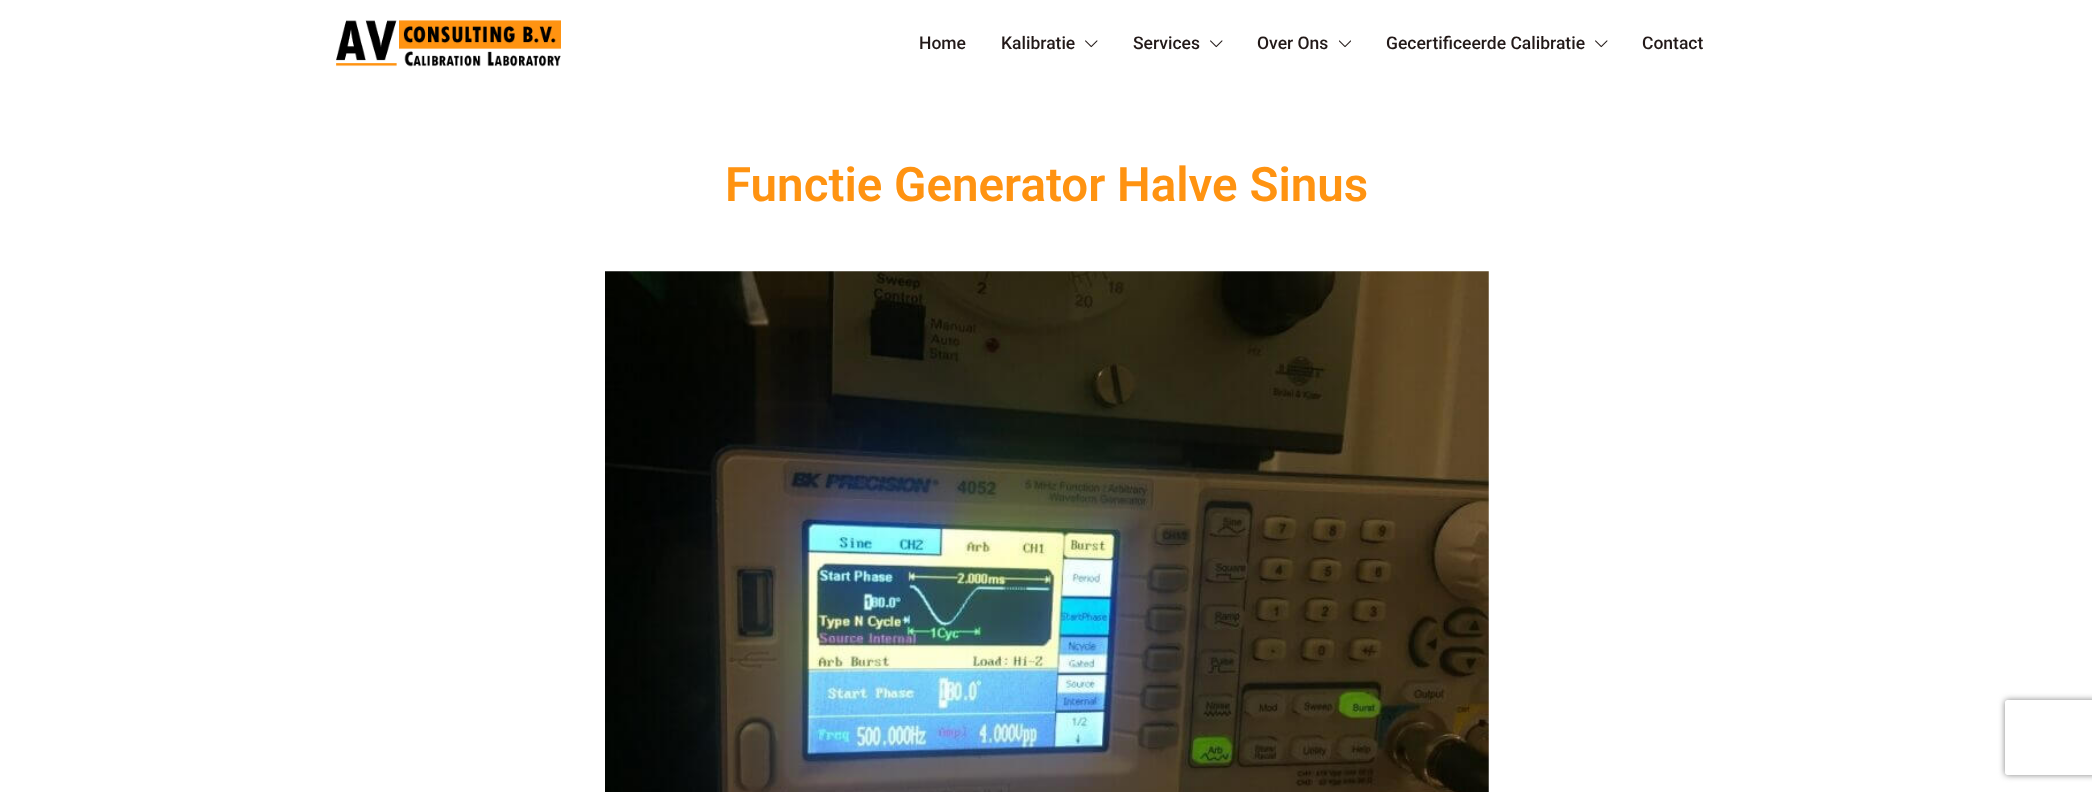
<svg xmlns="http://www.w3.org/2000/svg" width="2092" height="792">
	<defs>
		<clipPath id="clip1"><path d="M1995 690H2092V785H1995ZM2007.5 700H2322.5C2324 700 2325 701 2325 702.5V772.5C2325 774 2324 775 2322.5 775H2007.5C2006 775 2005 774 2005 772.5V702.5C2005 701 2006 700 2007.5 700Z" clip-rule="evenodd" /></clipPath>
	</defs>
	<rect width="100%" height="100%" fill="#FFFFFF" />
	<image x="336" y="20" width="225" height="47" href="assets/img1.png" />
	<g font-family="Roboto" font-size="17.5" font-weight="500" fill="#221918">
		<text x="919" y="49">Home</text>
		<text x="1001" y="49">Kalibratie</text>
	</g>
	<image x="1085" y="40" width="13" height="8" href="assets/img2.png" />
	<text x="1133" y="49" font-family="Roboto" font-size="17.5" font-weight="500" fill="#221918">Services</text>
	<image x="1210" y="40" width="13" height="8" href="assets/img2.png" />
	<text x="1257" y="49" font-family="Roboto" font-size="17.5" font-weight="500" fill="#221918">Over Ons</text>
	<image x="1339" y="40" width="12" height="8" href="assets/img3.png" />
	<text x="1386" y="49" font-family="Roboto" font-size="17.5" font-weight="500" fill="#221918">Gecertificeerde Calibratie</text>
	<image x="1595" y="40" width="13" height="8" href="assets/img2.png" />
	<text x="1642" y="49" font-family="Roboto" font-size="17.5" font-weight="500" fill="#221918">Contact</text>
	<text x="725" y="201" font-family="Roboto" font-size="47.5" font-weight="600" fill="#FF9311">Functie Generator Halve Sinus</text>
	<image x="605" y="271" width="884" height="521" href="assets/img4.png" />
	<g clip-path="url(#clip1)">
		<rect x="2005" y="700" width="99" height="75" rx="2.5" fill="#808080" filter="blur(3px)" />
	</g>
</svg>
